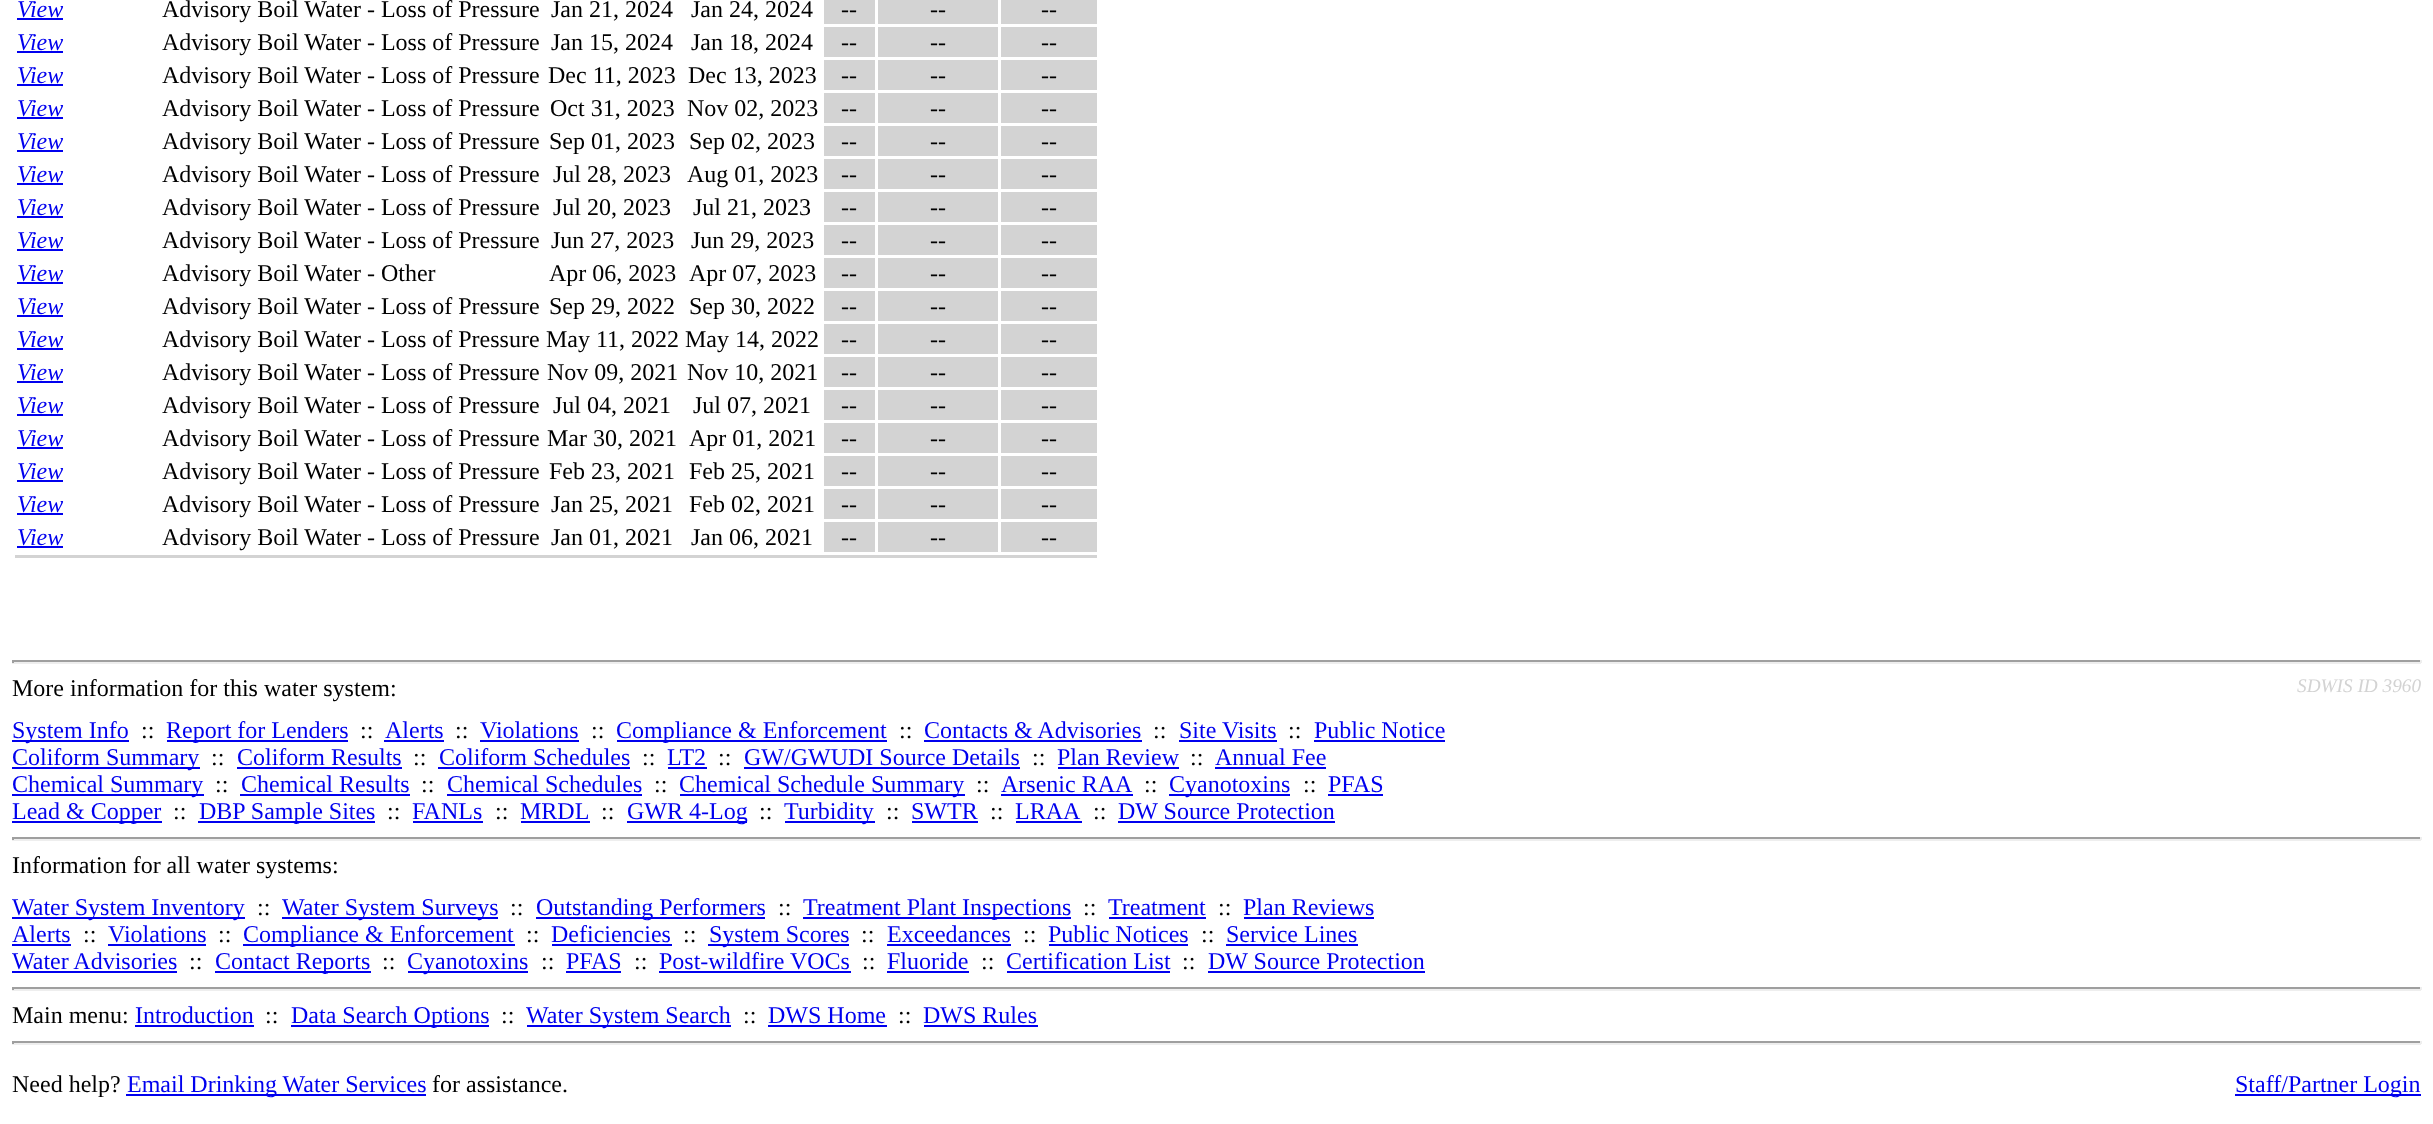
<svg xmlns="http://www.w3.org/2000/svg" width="2433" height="1124">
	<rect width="100%" height="100%" fill="#FFFFFF" />
	<text x="17" y="17" font-family="Liberation Serif" font-size="24" font-style="italic" fill="#0000EE">View</text>
	<rect x="17" y="18" width="46" height="2" fill="#0000EE" />
	<g font-family="Liberation Serif" font-size="24" fill="#000000">
		<text x="162" y="17">Advisory Boil Water - Loss of Pressure</text>
		<text x="551" y="17">Jan 21, 2024</text>
		<text x="691" y="17">Jan 24, 2024</text>
	</g>
	<rect x="824" y="0" width="51" height="24" fill="#D3D3D3" />
	<text x="841" y="17" font-family="Liberation Serif" font-size="24" fill="#000000">--</text>
	<rect x="878" y="0" width="120" height="24" fill="#D3D3D3" />
	<text x="930" y="17" font-family="Liberation Serif" font-size="24" fill="#000000">--</text>
	<rect x="1001" y="0" width="96" height="24" fill="#D3D3D3" />
	<text x="1041" y="17" font-family="Liberation Serif" font-size="24" fill="#000000">--</text>
	<text x="17" y="50" font-family="Liberation Serif" font-size="24" font-style="italic" fill="#0000EE">View</text>
	<rect x="17" y="51" width="46" height="2" fill="#0000EE" />
	<g font-family="Liberation Serif" font-size="24" fill="#000000">
		<text x="162" y="50">Advisory Boil Water - Loss of Pressure</text>
		<text x="551" y="50">Jan 15, 2024</text>
		<text x="691" y="50">Jan 18, 2024</text>
	</g>
	<rect x="824" y="27" width="51" height="30" fill="#D3D3D3" />
	<text x="841" y="50" font-family="Liberation Serif" font-size="24" fill="#000000">--</text>
	<rect x="878" y="27" width="120" height="30" fill="#D3D3D3" />
	<text x="930" y="50" font-family="Liberation Serif" font-size="24" fill="#000000">--</text>
	<rect x="1001" y="27" width="96" height="30" fill="#D3D3D3" />
	<text x="1041" y="50" font-family="Liberation Serif" font-size="24" fill="#000000">--</text>
	<text x="17" y="83" font-family="Liberation Serif" font-size="24" font-style="italic" fill="#0000EE">View</text>
	<rect x="17" y="84" width="46" height="2" fill="#0000EE" />
	<g font-family="Liberation Serif" font-size="24" fill="#000000">
		<text x="162" y="83">Advisory Boil Water - Loss of Pressure</text>
		<text x="548" y="83">Dec 11, 2023</text>
		<text x="688" y="83">Dec 13, 2023</text>
	</g>
	<rect x="824" y="60" width="51" height="30" fill="#D3D3D3" />
	<text x="841" y="83" font-family="Liberation Serif" font-size="24" fill="#000000">--</text>
	<rect x="878" y="60" width="120" height="30" fill="#D3D3D3" />
	<text x="930" y="83" font-family="Liberation Serif" font-size="24" fill="#000000">--</text>
	<rect x="1001" y="60" width="96" height="30" fill="#D3D3D3" />
	<text x="1041" y="83" font-family="Liberation Serif" font-size="24" fill="#000000">--</text>
	<text x="17" y="116" font-family="Liberation Serif" font-size="24" font-style="italic" fill="#0000EE">View</text>
	<rect x="17" y="117" width="46" height="2" fill="#0000EE" />
	<g font-family="Liberation Serif" font-size="24" fill="#000000">
		<text x="162" y="116">Advisory Boil Water - Loss of Pressure</text>
		<text x="550" y="116">Oct 31, 2023</text>
		<text x="687" y="116">Nov 02, 2023</text>
	</g>
	<rect x="824" y="93" width="51" height="30" fill="#D3D3D3" />
	<text x="841" y="116" font-family="Liberation Serif" font-size="24" fill="#000000">--</text>
	<rect x="878" y="93" width="120" height="30" fill="#D3D3D3" />
	<text x="930" y="116" font-family="Liberation Serif" font-size="24" fill="#000000">--</text>
	<rect x="1001" y="93" width="96" height="30" fill="#D3D3D3" />
	<text x="1041" y="116" font-family="Liberation Serif" font-size="24" fill="#000000">--</text>
	<text x="17" y="149" font-family="Liberation Serif" font-size="24" font-style="italic" fill="#0000EE">View</text>
	<rect x="17" y="150" width="46" height="2" fill="#0000EE" />
	<g font-family="Liberation Serif" font-size="24" fill="#000000">
		<text x="162" y="149">Advisory Boil Water - Loss of Pressure</text>
		<text x="549" y="149">Sep 01, 2023</text>
		<text x="689" y="149">Sep 02, 2023</text>
	</g>
	<rect x="824" y="126" width="51" height="30" fill="#D3D3D3" />
	<text x="841" y="149" font-family="Liberation Serif" font-size="24" fill="#000000">--</text>
	<rect x="878" y="126" width="120" height="30" fill="#D3D3D3" />
	<text x="930" y="149" font-family="Liberation Serif" font-size="24" fill="#000000">--</text>
	<rect x="1001" y="126" width="96" height="30" fill="#D3D3D3" />
	<text x="1041" y="149" font-family="Liberation Serif" font-size="24" fill="#000000">--</text>
	<text x="17" y="182" font-family="Liberation Serif" font-size="24" font-style="italic" fill="#0000EE">View</text>
	<rect x="17" y="183" width="46" height="2" fill="#0000EE" />
	<g font-family="Liberation Serif" font-size="24" fill="#000000">
		<text x="162" y="182">Advisory Boil Water - Loss of Pressure</text>
		<text x="553" y="182">Jul 28, 2023</text>
		<text x="687" y="182">Aug 01, 2023</text>
	</g>
	<rect x="824" y="159" width="51" height="30" fill="#D3D3D3" />
	<text x="841" y="182" font-family="Liberation Serif" font-size="24" fill="#000000">--</text>
	<rect x="878" y="159" width="120" height="30" fill="#D3D3D3" />
	<text x="930" y="182" font-family="Liberation Serif" font-size="24" fill="#000000">--</text>
	<rect x="1001" y="159" width="96" height="30" fill="#D3D3D3" />
	<text x="1041" y="182" font-family="Liberation Serif" font-size="24" fill="#000000">--</text>
	<text x="17" y="215" font-family="Liberation Serif" font-size="24" font-style="italic" fill="#0000EE">View</text>
	<rect x="17" y="216" width="46" height="2" fill="#0000EE" />
	<g font-family="Liberation Serif" font-size="24" fill="#000000">
		<text x="162" y="215">Advisory Boil Water - Loss of Pressure</text>
		<text x="553" y="215">Jul 20, 2023</text>
		<text x="693" y="215">Jul 21, 2023</text>
	</g>
	<rect x="824" y="192" width="51" height="30" fill="#D3D3D3" />
	<text x="841" y="215" font-family="Liberation Serif" font-size="24" fill="#000000">--</text>
	<rect x="878" y="192" width="120" height="30" fill="#D3D3D3" />
	<text x="930" y="215" font-family="Liberation Serif" font-size="24" fill="#000000">--</text>
	<rect x="1001" y="192" width="96" height="30" fill="#D3D3D3" />
	<text x="1041" y="215" font-family="Liberation Serif" font-size="24" fill="#000000">--</text>
	<text x="17" y="248" font-family="Liberation Serif" font-size="24" font-style="italic" fill="#0000EE">View</text>
	<rect x="17" y="249" width="46" height="2" fill="#0000EE" />
	<g font-family="Liberation Serif" font-size="24" fill="#000000">
		<text x="162" y="248">Advisory Boil Water - Loss of Pressure</text>
		<text x="551" y="248">Jun 27, 2023</text>
		<text x="691" y="248">Jun 29, 2023</text>
	</g>
	<rect x="824" y="225" width="51" height="30" fill="#D3D3D3" />
	<text x="841" y="248" font-family="Liberation Serif" font-size="24" fill="#000000">--</text>
	<rect x="878" y="225" width="120" height="30" fill="#D3D3D3" />
	<text x="930" y="248" font-family="Liberation Serif" font-size="24" fill="#000000">--</text>
	<rect x="1001" y="225" width="96" height="30" fill="#D3D3D3" />
	<text x="1041" y="248" font-family="Liberation Serif" font-size="24" fill="#000000">--</text>
	<text x="17" y="281" font-family="Liberation Serif" font-size="24" font-style="italic" fill="#0000EE">View</text>
	<rect x="17" y="282" width="46" height="2" fill="#0000EE" />
	<g font-family="Liberation Serif" font-size="24" fill="#000000">
		<text x="162" y="281">Advisory Boil Water - Other</text>
		<text x="549" y="281">Apr 06, 2023</text>
		<text x="689" y="281">Apr 07, 2023</text>
	</g>
	<rect x="824" y="258" width="51" height="30" fill="#D3D3D3" />
	<text x="841" y="281" font-family="Liberation Serif" font-size="24" fill="#000000">--</text>
	<rect x="878" y="258" width="120" height="30" fill="#D3D3D3" />
	<text x="930" y="281" font-family="Liberation Serif" font-size="24" fill="#000000">--</text>
	<rect x="1001" y="258" width="96" height="30" fill="#D3D3D3" />
	<text x="1041" y="281" font-family="Liberation Serif" font-size="24" fill="#000000">--</text>
	<text x="17" y="314" font-family="Liberation Serif" font-size="24" font-style="italic" fill="#0000EE">View</text>
	<rect x="17" y="315" width="46" height="2" fill="#0000EE" />
	<g font-family="Liberation Serif" font-size="24" fill="#000000">
		<text x="162" y="314">Advisory Boil Water - Loss of Pressure</text>
		<text x="549" y="314">Sep 29, 2022</text>
		<text x="689" y="314">Sep 30, 2022</text>
	</g>
	<rect x="824" y="291" width="51" height="30" fill="#D3D3D3" />
	<text x="841" y="314" font-family="Liberation Serif" font-size="24" fill="#000000">--</text>
	<rect x="878" y="291" width="120" height="30" fill="#D3D3D3" />
	<text x="930" y="314" font-family="Liberation Serif" font-size="24" fill="#000000">--</text>
	<rect x="1001" y="291" width="96" height="30" fill="#D3D3D3" />
	<text x="1041" y="314" font-family="Liberation Serif" font-size="24" fill="#000000">--</text>
	<text x="17" y="347" font-family="Liberation Serif" font-size="24" font-style="italic" fill="#0000EE">View</text>
	<rect x="17" y="348" width="46" height="2" fill="#0000EE" />
	<g font-family="Liberation Serif" font-size="24" fill="#000000">
		<text x="162" y="347">Advisory Boil Water - Loss of Pressure</text>
		<text x="546" y="347">May 11, 2022</text>
		<text x="685" y="347">May 14, 2022</text>
	</g>
	<rect x="824" y="324" width="51" height="30" fill="#D3D3D3" />
	<text x="841" y="347" font-family="Liberation Serif" font-size="24" fill="#000000">--</text>
	<rect x="878" y="324" width="120" height="30" fill="#D3D3D3" />
	<text x="930" y="347" font-family="Liberation Serif" font-size="24" fill="#000000">--</text>
	<rect x="1001" y="324" width="96" height="30" fill="#D3D3D3" />
	<text x="1041" y="347" font-family="Liberation Serif" font-size="24" fill="#000000">--</text>
	<text x="17" y="380" font-family="Liberation Serif" font-size="24" font-style="italic" fill="#0000EE">View</text>
	<rect x="17" y="381" width="46" height="2" fill="#0000EE" />
	<g font-family="Liberation Serif" font-size="24" fill="#000000">
		<text x="162" y="380">Advisory Boil Water - Loss of Pressure</text>
		<text x="547" y="380">Nov 09, 2021</text>
		<text x="687" y="380">Nov 10, 2021</text>
	</g>
	<rect x="824" y="357" width="51" height="30" fill="#D3D3D3" />
	<text x="841" y="380" font-family="Liberation Serif" font-size="24" fill="#000000">--</text>
	<rect x="878" y="357" width="120" height="30" fill="#D3D3D3" />
	<text x="930" y="380" font-family="Liberation Serif" font-size="24" fill="#000000">--</text>
	<rect x="1001" y="357" width="96" height="30" fill="#D3D3D3" />
	<text x="1041" y="380" font-family="Liberation Serif" font-size="24" fill="#000000">--</text>
	<text x="17" y="413" font-family="Liberation Serif" font-size="24" font-style="italic" fill="#0000EE">View</text>
	<rect x="17" y="414" width="46" height="2" fill="#0000EE" />
	<g font-family="Liberation Serif" font-size="24" fill="#000000">
		<text x="162" y="413">Advisory Boil Water - Loss of Pressure</text>
		<text x="553" y="413">Jul 04, 2021</text>
		<text x="693" y="413">Jul 07, 2021</text>
	</g>
	<rect x="824" y="390" width="51" height="30" fill="#D3D3D3" />
	<text x="841" y="413" font-family="Liberation Serif" font-size="24" fill="#000000">--</text>
	<rect x="878" y="390" width="120" height="30" fill="#D3D3D3" />
	<text x="930" y="413" font-family="Liberation Serif" font-size="24" fill="#000000">--</text>
	<rect x="1001" y="390" width="96" height="30" fill="#D3D3D3" />
	<text x="1041" y="413" font-family="Liberation Serif" font-size="24" fill="#000000">--</text>
	<text x="17" y="446" font-family="Liberation Serif" font-size="24" font-style="italic" fill="#0000EE">View</text>
	<rect x="17" y="447" width="46" height="2" fill="#0000EE" />
	<g font-family="Liberation Serif" font-size="24" fill="#000000">
		<text x="162" y="446">Advisory Boil Water - Loss of Pressure</text>
		<text x="547" y="446">Mar 30, 2021</text>
		<text x="689" y="446">Apr 01, 2021</text>
	</g>
	<rect x="824" y="423" width="51" height="30" fill="#D3D3D3" />
	<text x="841" y="446" font-family="Liberation Serif" font-size="24" fill="#000000">--</text>
	<rect x="878" y="423" width="120" height="30" fill="#D3D3D3" />
	<text x="930" y="446" font-family="Liberation Serif" font-size="24" fill="#000000">--</text>
	<rect x="1001" y="423" width="96" height="30" fill="#D3D3D3" />
	<text x="1041" y="446" font-family="Liberation Serif" font-size="24" fill="#000000">--</text>
	<text x="17" y="479" font-family="Liberation Serif" font-size="24" font-style="italic" fill="#0000EE">View</text>
	<rect x="17" y="480" width="46" height="2" fill="#0000EE" />
	<g font-family="Liberation Serif" font-size="24" fill="#000000">
		<text x="162" y="479">Advisory Boil Water - Loss of Pressure</text>
		<text x="549" y="479">Feb 23, 2021</text>
		<text x="689" y="479">Feb 25, 2021</text>
	</g>
	<rect x="824" y="456" width="51" height="30" fill="#D3D3D3" />
	<text x="841" y="479" font-family="Liberation Serif" font-size="24" fill="#000000">--</text>
	<rect x="878" y="456" width="120" height="30" fill="#D3D3D3" />
	<text x="930" y="479" font-family="Liberation Serif" font-size="24" fill="#000000">--</text>
	<rect x="1001" y="456" width="96" height="30" fill="#D3D3D3" />
	<text x="1041" y="479" font-family="Liberation Serif" font-size="24" fill="#000000">--</text>
	<text x="17" y="512" font-family="Liberation Serif" font-size="24" font-style="italic" fill="#0000EE">View</text>
	<rect x="17" y="513" width="46" height="2" fill="#0000EE" />
	<g font-family="Liberation Serif" font-size="24" fill="#000000">
		<text x="162" y="512">Advisory Boil Water - Loss of Pressure</text>
		<text x="551" y="512">Jan 25, 2021</text>
		<text x="689" y="512">Feb 02, 2021</text>
	</g>
	<rect x="824" y="489" width="51" height="30" fill="#D3D3D3" />
	<text x="841" y="512" font-family="Liberation Serif" font-size="24" fill="#000000">--</text>
	<rect x="878" y="489" width="120" height="30" fill="#D3D3D3" />
	<text x="930" y="512" font-family="Liberation Serif" font-size="24" fill="#000000">--</text>
	<rect x="1001" y="489" width="96" height="30" fill="#D3D3D3" />
	<text x="1041" y="512" font-family="Liberation Serif" font-size="24" fill="#000000">--</text>
	<text x="17" y="545" font-family="Liberation Serif" font-size="24" font-style="italic" fill="#0000EE">View</text>
	<rect x="17" y="546" width="46" height="2" fill="#0000EE" />
	<g font-family="Liberation Serif" font-size="24" fill="#000000">
		<text x="162" y="545">Advisory Boil Water - Loss of Pressure</text>
		<text x="551" y="545">Jan 01, 2021</text>
		<text x="691" y="545">Jan 06, 2021</text>
	</g>
	<rect x="824" y="522" width="51" height="30" fill="#D3D3D3" />
	<text x="841" y="545" font-family="Liberation Serif" font-size="24" fill="#000000">--</text>
	<rect x="878" y="522" width="120" height="30" fill="#D3D3D3" />
	<text x="930" y="545" font-family="Liberation Serif" font-size="24" fill="#000000">--</text>
	<rect x="1001" y="522" width="96" height="30" fill="#D3D3D3" />
	<text x="1041" y="545" font-family="Liberation Serif" font-size="24" fill="#000000">--</text>
	<rect x="15" y="555" width="1082" height="3" fill="#D3D3D3" />
	<rect x="12" y="660" width="2409" height="2" fill="#9F9F9F" />
	<rect x="2420" y="660" width="2" height="3" fill="#EEEEEE" />
	<rect x="12" y="662" width="2409" height="2" fill="#EEEEEE" />
	<rect x="12" y="660" width="2" height="3" fill="#9F9F9F" />
	<text x="12" y="696" font-family="Liberation Serif" font-size="24" fill="#000000">More information for this water system:</text>
	<text x="2297" y="692" font-family="Liberation Serif" font-size="19.25" font-style="italic" fill="#D3D3D3">SDWIS ID 3960</text>
	<rect x="12" y="740" width="117" height="2" fill="#0000EE" />
	<text x="12" y="738" font-family="Liberation Serif" font-size="24" fill="#0000EE">System Info</text>
	<text x="141" y="738" font-family="Liberation Serif" font-size="24" fill="#000000">::</text>
	<rect x="167" y="740" width="181" height="2" fill="#0000EE" />
	<text x="166" y="738" font-family="Liberation Serif" font-size="24" fill="#0000EE">Report for Lenders</text>
	<text x="360" y="738" font-family="Liberation Serif" font-size="24" fill="#000000">::</text>
	<text x="385" y="738" font-family="Liberation Serif" font-size="24" fill="#0000EE">Alerts</text>
	<rect x="384" y="740" width="60" height="2" fill="#0000EE" />
	<text x="455" y="738" font-family="Liberation Serif" font-size="24" fill="#000000">::</text>
	<text x="480" y="738" font-family="Liberation Serif" font-size="24" fill="#0000EE">Violations</text>
	<rect x="480" y="740" width="99" height="2" fill="#0000EE" />
	<text x="591" y="738" font-family="Liberation Serif" font-size="24" fill="#000000">::</text>
	<rect x="617" y="740" width="270" height="2" fill="#0000EE" />
	<text x="616" y="738" font-family="Liberation Serif" font-size="24" fill="#0000EE">Compliance &amp; Enforcement</text>
	<text x="899" y="738" font-family="Liberation Serif" font-size="24" fill="#000000">::</text>
	<text x="924" y="738" font-family="Liberation Serif" font-size="24" fill="#0000EE">Contacts &amp; Advisories</text>
	<rect x="924" y="740" width="218" height="2" fill="#0000EE" />
	<text x="1153" y="738" font-family="Liberation Serif" font-size="24" fill="#000000">::</text>
	<text x="1179" y="738" font-family="Liberation Serif" font-size="24" fill="#0000EE">Site Visits</text>
	<rect x="1179" y="740" width="98" height="2" fill="#0000EE" />
	<text x="1288" y="738" font-family="Liberation Serif" font-size="24" fill="#000000">::</text>
	<text x="1314" y="738" font-family="Liberation Serif" font-size="24" fill="#0000EE">Public Notice</text>
	<rect x="1314" y="740" width="131" height="2" fill="#0000EE" />
	<rect x="12" y="767" width="188" height="2" fill="#0000EE" />
	<text x="12" y="765" font-family="Liberation Serif" font-size="24" fill="#0000EE">Coliform Summary</text>
	<text x="211" y="765" font-family="Liberation Serif" font-size="24" fill="#000000">::</text>
	<text x="237" y="765" font-family="Liberation Serif" font-size="24" fill="#0000EE">Coliform Results</text>
	<rect x="237" y="767" width="165" height="2" fill="#0000EE" />
	<text x="413" y="765" font-family="Liberation Serif" font-size="24" fill="#000000">::</text>
	<text x="439" y="765" font-family="Liberation Serif" font-size="24" fill="#0000EE">Coliform Schedules</text>
	<rect x="438" y="767" width="192" height="2" fill="#0000EE" />
	<text x="642" y="765" font-family="Liberation Serif" font-size="24" fill="#000000">::</text>
	<text x="667" y="765" font-family="Liberation Serif" font-size="24" fill="#0000EE">LT2</text>
	<rect x="668" y="767" width="39" height="2" fill="#0000EE" />
	<text x="718" y="765" font-family="Liberation Serif" font-size="24" fill="#000000">::</text>
	<text x="744" y="765" font-family="Liberation Serif" font-size="24" fill="#0000EE">GW/GWUDI Source Details</text>
	<rect x="744" y="767" width="276" height="2" fill="#0000EE" />
	<text x="1032" y="765" font-family="Liberation Serif" font-size="24" fill="#000000">::</text>
	<text x="1057" y="765" font-family="Liberation Serif" font-size="24" fill="#0000EE">Plan Review</text>
	<rect x="1058" y="767" width="121" height="2" fill="#0000EE" />
	<text x="1190" y="765" font-family="Liberation Serif" font-size="24" fill="#000000">::</text>
	<text x="1215" y="765" font-family="Liberation Serif" font-size="24" fill="#0000EE">Annual Fee</text>
	<rect x="1215" y="767" width="111" height="2" fill="#0000EE" />
	<rect x="12" y="794" width="192" height="2" fill="#0000EE" />
	<text x="12" y="792" font-family="Liberation Serif" font-size="24" fill="#0000EE">Chemical Summary</text>
	<text x="215" y="792" font-family="Liberation Serif" font-size="24" fill="#000000">::</text>
	<text x="241" y="792" font-family="Liberation Serif" font-size="24" fill="#0000EE">Chemical Results</text>
	<rect x="240" y="794" width="170" height="2" fill="#0000EE" />
	<text x="421" y="792" font-family="Liberation Serif" font-size="24" fill="#000000">::</text>
	<text x="447" y="792" font-family="Liberation Serif" font-size="24" fill="#0000EE">Chemical Schedules</text>
	<rect x="447" y="794" width="195" height="2" fill="#0000EE" />
	<text x="654" y="792" font-family="Liberation Serif" font-size="24" fill="#000000">::</text>
	<rect x="680" y="794" width="285" height="2" fill="#0000EE" />
	<text x="679" y="792" font-family="Liberation Serif" font-size="24" fill="#0000EE">Chemical Schedule Summary</text>
	<text x="976" y="792" font-family="Liberation Serif" font-size="24" fill="#000000">::</text>
	<text x="1001" y="792" font-family="Liberation Serif" font-size="24" fill="#0000EE">Arsenic RAA</text>
	<rect x="1001" y="794" width="132" height="2" fill="#0000EE" />
	<text x="1144" y="792" font-family="Liberation Serif" font-size="24" fill="#000000">::</text>
	<rect x="1169" y="794" width="121" height="2" fill="#0000EE" />
	<text x="1169" y="792" font-family="Liberation Serif" font-size="24" fill="#0000EE">Cyanotoxins</text>
	<text x="1303" y="792" font-family="Liberation Serif" font-size="24" fill="#000000">::</text>
	<text x="1328" y="792" font-family="Liberation Serif" font-size="24" fill="#0000EE">PFAS</text>
	<rect x="1328" y="794" width="55" height="2" fill="#0000EE" />
	<rect x="12" y="821" width="150" height="2" fill="#0000EE" />
	<text x="12" y="819" font-family="Liberation Serif" font-size="24" fill="#0000EE">Lead &amp; Copper</text>
	<text x="173" y="819" font-family="Liberation Serif" font-size="24" fill="#000000">::</text>
	<rect x="198" y="821" width="177" height="2" fill="#0000EE" />
	<text x="199" y="819" font-family="Liberation Serif" font-size="24" fill="#0000EE">DBP Sample Sites</text>
	<text x="387" y="819" font-family="Liberation Serif" font-size="24" fill="#000000">::</text>
	<text x="412" y="819" font-family="Liberation Serif" font-size="24" fill="#0000EE">FANLs</text>
	<rect x="413" y="821" width="70" height="2" fill="#0000EE" />
	<text x="495" y="819" font-family="Liberation Serif" font-size="24" fill="#000000">::</text>
	<text x="520" y="819" font-family="Liberation Serif" font-size="24" fill="#0000EE">MRDL</text>
	<rect x="521" y="821" width="69" height="2" fill="#0000EE" />
	<text x="601" y="819" font-family="Liberation Serif" font-size="24" fill="#000000">::</text>
	<rect x="627" y="821" width="120" height="2" fill="#0000EE" />
	<text x="627" y="819" font-family="Liberation Serif" font-size="24" fill="#0000EE">GWR 4-Log</text>
	<text x="759" y="819" font-family="Liberation Serif" font-size="24" fill="#000000">::</text>
	<rect x="785" y="821" width="90" height="2" fill="#0000EE" />
	<text x="784" y="819" font-family="Liberation Serif" font-size="24" fill="#0000EE">Turbidity</text>
	<text x="886" y="819" font-family="Liberation Serif" font-size="24" fill="#000000">::</text>
	<text x="911" y="819" font-family="Liberation Serif" font-size="24" fill="#0000EE">SWTR</text>
	<rect x="912" y="821" width="66" height="2" fill="#0000EE" />
	<text x="990" y="819" font-family="Liberation Serif" font-size="24" fill="#000000">::</text>
	<text x="1015" y="819" font-family="Liberation Serif" font-size="24" fill="#0000EE">LRAA</text>
	<rect x="1016" y="821" width="66" height="2" fill="#0000EE" />
	<text x="1093" y="819" font-family="Liberation Serif" font-size="24" fill="#000000">::</text>
	<text x="1118" y="819" font-family="Liberation Serif" font-size="24" fill="#0000EE">DW Source Protection</text>
	<rect x="1118" y="821" width="217" height="2" fill="#0000EE" />
	<rect x="12" y="837" width="2409" height="2" fill="#9F9F9F" />
	<rect x="2420" y="837" width="2" height="3" fill="#EEEEEE" />
	<rect x="12" y="839" width="2409" height="2" fill="#EEEEEE" />
	<rect x="12" y="837" width="2" height="3" fill="#9F9F9F" />
	<text x="12" y="873" font-family="Liberation Serif" font-size="24" fill="#000000">Information for all water systems:</text>
	<rect x="12" y="917" width="233" height="2" fill="#0000EE" />
	<text x="12" y="915" font-family="Liberation Serif" font-size="24" fill="#0000EE">Water System Inventory</text>
	<text x="257" y="915" font-family="Liberation Serif" font-size="24" fill="#000000">::</text>
	<rect x="282" y="917" width="216" height="2" fill="#0000EE" />
	<text x="282" y="915" font-family="Liberation Serif" font-size="24" fill="#0000EE">Water System Surveys</text>
	<text x="510" y="915" font-family="Liberation Serif" font-size="24" fill="#000000">::</text>
	<rect x="536" y="917" width="229" height="2" fill="#0000EE" />
	<text x="536" y="915" font-family="Liberation Serif" font-size="24" fill="#0000EE">Outstanding Performers</text>
	<text x="778" y="915" font-family="Liberation Serif" font-size="24" fill="#000000">::</text>
	<rect x="803" y="917" width="268" height="2" fill="#0000EE" />
	<text x="803" y="915" font-family="Liberation Serif" font-size="24" fill="#0000EE">Treatment Plant Inspections</text>
	<text x="1083" y="915" font-family="Liberation Serif" font-size="24" fill="#000000">::</text>
	<text x="1108" y="915" font-family="Liberation Serif" font-size="24" fill="#0000EE">Treatment</text>
	<rect x="1109" y="917" width="97" height="2" fill="#0000EE" />
	<text x="1218" y="915" font-family="Liberation Serif" font-size="24" fill="#000000">::</text>
	<text x="1243" y="915" font-family="Liberation Serif" font-size="24" fill="#0000EE">Plan Reviews</text>
	<rect x="1244" y="917" width="130" height="2" fill="#0000EE" />
	<text x="12" y="942" font-family="Liberation Serif" font-size="24" fill="#0000EE">Alerts</text>
	<rect x="12" y="944" width="59" height="2" fill="#0000EE" />
	<text x="83" y="942" font-family="Liberation Serif" font-size="24" fill="#000000">::</text>
	<text x="108" y="942" font-family="Liberation Serif" font-size="24" fill="#0000EE">Violations</text>
	<rect x="108" y="944" width="98" height="2" fill="#0000EE" />
	<text x="218" y="942" font-family="Liberation Serif" font-size="24" fill="#000000">::</text>
	<rect x="243" y="944" width="272" height="2" fill="#0000EE" />
	<text x="243" y="942" font-family="Liberation Serif" font-size="24" fill="#0000EE">Compliance &amp; Enforcement</text>
	<text x="526" y="942" font-family="Liberation Serif" font-size="24" fill="#000000">::</text>
	<text x="551" y="942" font-family="Liberation Serif" font-size="24" fill="#0000EE">Deficiencies</text>
	<rect x="552" y="944" width="120" height="2" fill="#0000EE" />
	<text x="683" y="942" font-family="Liberation Serif" font-size="24" fill="#000000">::</text>
	<rect x="708" y="944" width="141" height="2" fill="#0000EE" />
	<text x="709" y="942" font-family="Liberation Serif" font-size="24" fill="#0000EE">System Scores</text>
	<text x="861" y="942" font-family="Liberation Serif" font-size="24" fill="#000000">::</text>
	<text x="887" y="942" font-family="Liberation Serif" font-size="24" fill="#0000EE">Exceedances</text>
	<rect x="887" y="944" width="124" height="2" fill="#0000EE" />
	<text x="1023" y="942" font-family="Liberation Serif" font-size="24" fill="#000000">::</text>
	<text x="1048" y="942" font-family="Liberation Serif" font-size="24" fill="#0000EE">Public Notices</text>
	<rect x="1049" y="944" width="139" height="2" fill="#0000EE" />
	<text x="1201" y="942" font-family="Liberation Serif" font-size="24" fill="#000000">::</text>
	<text x="1226" y="942" font-family="Liberation Serif" font-size="24" fill="#0000EE">Service Lines</text>
	<rect x="1226" y="944" width="132" height="2" fill="#0000EE" />
	<text x="12" y="969" font-family="Liberation Serif" font-size="24" fill="#0000EE">Water Advisories</text>
	<rect x="12" y="971" width="165" height="2" fill="#0000EE" />
	<text x="189" y="969" font-family="Liberation Serif" font-size="24" fill="#000000">::</text>
	<rect x="215" y="971" width="156" height="2" fill="#0000EE" />
	<text x="215" y="969" font-family="Liberation Serif" font-size="24" fill="#0000EE">Contact Reports</text>
	<text x="382" y="969" font-family="Liberation Serif" font-size="24" fill="#000000">::</text>
	<rect x="408" y="971" width="120" height="2" fill="#0000EE" />
	<text x="407" y="969" font-family="Liberation Serif" font-size="24" fill="#0000EE">Cyanotoxins</text>
	<text x="541" y="969" font-family="Liberation Serif" font-size="24" fill="#000000">::</text>
	<text x="566" y="969" font-family="Liberation Serif" font-size="24" fill="#0000EE">PFAS</text>
	<rect x="566" y="971" width="55" height="2" fill="#0000EE" />
	<text x="634" y="969" font-family="Liberation Serif" font-size="24" fill="#000000">::</text>
	<text x="659" y="969" font-family="Liberation Serif" font-size="24" fill="#0000EE">Post-wildfire VOCs</text>
	<rect x="659" y="971" width="192" height="2" fill="#0000EE" />
	<text x="862" y="969" font-family="Liberation Serif" font-size="24" fill="#000000">::</text>
	<text x="887" y="969" font-family="Liberation Serif" font-size="24" fill="#0000EE">Fluoride</text>
	<rect x="887" y="971" width="82" height="2" fill="#0000EE" />
	<text x="981" y="969" font-family="Liberation Serif" font-size="24" fill="#000000">::</text>
	<text x="1006" y="969" font-family="Liberation Serif" font-size="24" fill="#0000EE">Certification List</text>
	<rect x="1007" y="971" width="163" height="2" fill="#0000EE" />
	<text x="1182" y="969" font-family="Liberation Serif" font-size="24" fill="#000000">::</text>
	<text x="1208" y="969" font-family="Liberation Serif" font-size="24" fill="#0000EE">DW Source Protection</text>
	<rect x="1208" y="971" width="217" height="2" fill="#0000EE" />
	<rect x="12" y="987" width="2409" height="2" fill="#9F9F9F" />
	<rect x="2420" y="987" width="2" height="3" fill="#EEEEEE" />
	<rect x="12" y="989" width="2409" height="2" fill="#EEEEEE" />
	<rect x="12" y="987" width="2" height="3" fill="#9F9F9F" />
	<text x="12" y="1023" font-family="Liberation Serif" font-size="24" fill="#000000">Main menu:</text>
	<text x="135" y="1023" font-family="Liberation Serif" font-size="24" fill="#0000EE">Introduction</text>
	<rect x="135" y="1025" width="119" height="2" fill="#0000EE" />
	<text x="265" y="1023" font-family="Liberation Serif" font-size="24" fill="#000000">::</text>
	<rect x="291" y="1025" width="198" height="2" fill="#0000EE" />
	<text x="291" y="1023" font-family="Liberation Serif" font-size="24" fill="#0000EE">Data Search Options</text>
	<text x="501" y="1023" font-family="Liberation Serif" font-size="24" fill="#000000">::</text>
	<rect x="527" y="1025" width="204" height="2" fill="#0000EE" />
	<text x="526" y="1023" font-family="Liberation Serif" font-size="24" fill="#0000EE">Water System Search</text>
	<text x="743" y="1023" font-family="Liberation Serif" font-size="24" fill="#000000">::</text>
	<text x="768" y="1023" font-family="Liberation Serif" font-size="24" fill="#0000EE">DWS Home</text>
	<rect x="768" y="1025" width="119" height="2" fill="#0000EE" />
	<text x="898" y="1023" font-family="Liberation Serif" font-size="24" fill="#000000">::</text>
	<text x="923" y="1023" font-family="Liberation Serif" font-size="24" fill="#0000EE">DWS Rules</text>
	<rect x="924" y="1025" width="114" height="2" fill="#0000EE" />
	<rect x="12" y="1041" width="2409" height="2" fill="#9F9F9F" />
	<rect x="2420" y="1041" width="2" height="3" fill="#EEEEEE" />
	<rect x="12" y="1043" width="2409" height="2" fill="#EEEEEE" />
	<rect x="12" y="1041" width="2" height="3" fill="#9F9F9F" />
	<text x="12" y="1092" font-family="Liberation Serif" font-size="24" fill="#000000">Need help?</text>
	<rect x="126" y="1094" width="300" height="2" fill="#0000EE" />
	<text x="127" y="1092" font-family="Liberation Serif" font-size="24" fill="#0000EE">Email Drinking Water Services</text>
	<text x="432" y="1092" font-family="Liberation Serif" font-size="24" fill="#000000">for assistance.</text>
	<rect x="2235" y="1094" width="186" height="2" fill="#0000EE" />
	<text x="2235" y="1092" font-family="Liberation Serif" font-size="24" fill="#0000EE">Staff/Partner Login</text>
</svg>
